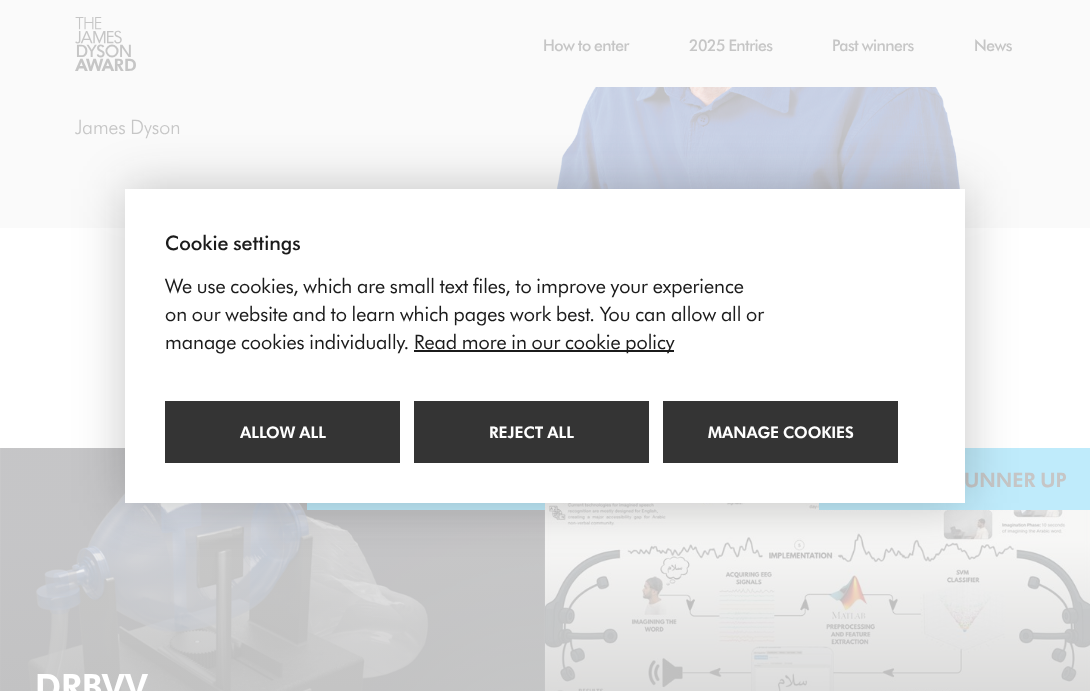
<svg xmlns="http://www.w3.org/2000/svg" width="1090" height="691">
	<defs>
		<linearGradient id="g1" gradientUnits="userSpaceOnUse" x1="286" y1="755" x2="286" y2="448"><stop offset="0.05" stop-color="#BFBFBF" stop-opacity="0.7" /><stop offset="0.7" stop-color="#BFBFBF" stop-opacity="0.1" /></linearGradient>
	</defs>
	<rect width="100%" height="100%" fill="#FFFFFF" />
	<rect x="0" y="0" width="1090" height="228" fill="#FAFAFA" />
	<image x="75" y="17" width="61" height="54" href="assets/img1.png" />
	<g font-family="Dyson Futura" font-size="16" font-weight="500" letter-spacing="-0.5" fill="#C6C6C6">
		<text x="543" y="51">How to enter</text>
		<text x="689" y="51">2025 Entries</text>
		<text x="832" y="51">Past winners</text>
		<text x="974" y="51">News</text>
	</g>
	<text x="75" y="134" font-family="Dyson Futura" font-size="20" font-weight="300" fill="#C6C6C6">James Dyson</text>
	<image x="556" y="87" width="405" height="102" href="assets/img2.png" />
	<image x="545" y="503" width="545" height="188" href="assets/img3.png" />
	<rect x="819" y="448" width="271" height="62" fill="#BFEBFB" />
	<text x="964" y="487" font-family="Dyson Futura" font-size="20" font-weight="900" fill="#C6C6C6">UNNER UP</text>
	<image x="0" y="448" width="545" height="243" href="assets/img4.png" />
	<rect x="0" y="448" width="545" height="243" fill="url(#g1)" />
	<rect x="307" y="503" width="238" height="7" fill="#BFEBFB" />
	<text x="35" y="699" font-family="Dyson Futura" font-size="35" font-weight="900" fill="#FFFFFF">DRBVV</text>
	<rect x="125" y="189" width="840" height="314" fill="#1B1B1B" fill-opacity="0.25" filter="blur(25px)" />
	<rect x="125" y="189" width="840" height="314" fill="#FFFFFF" />
	<text x="165" y="250" font-family="Dyson Futura" font-size="20" font-weight="500" fill="#1B1B1B">Cookie settings</text>
	<g font-family="Dyson Futura" font-size="20" fill="#1B1B1B">
		<text x="165" y="293">We use cookies, which are small text files, to improve your experience</text>
		<text x="165" y="321">on our website and to learn which pages work best. You can allow all or</text>
		<text x="165" y="349">manage cookies individually.</text>
	</g>
	<rect x="414" y="350" width="260" height="2" fill="#1B1B1B" />
	<text x="414" y="349" font-family="Dyson Futura" font-size="20" fill="#1B1B1B">Read more in our cookie policy</text>
	<rect x="165" y="401" width="235" height="62" fill="#343434" />
	<text x="240" y="438" font-family="Dyson Futura" font-size="16" font-weight="900" fill="#FFFFFF">ALLOW ALL</text>
	<rect x="414" y="401" width="235" height="62" fill="#343434" />
	<text x="489" y="438" font-family="Dyson Futura" font-size="16" font-weight="900" fill="#FFFFFF">REJECT ALL</text>
	<rect x="663" y="401" width="235" height="62" fill="#343434" />
	<text x="708" y="438" font-family="Dyson Futura" font-size="16" font-weight="900" fill="#FFFFFF">MANAGE COOKIES</text>
</svg>
